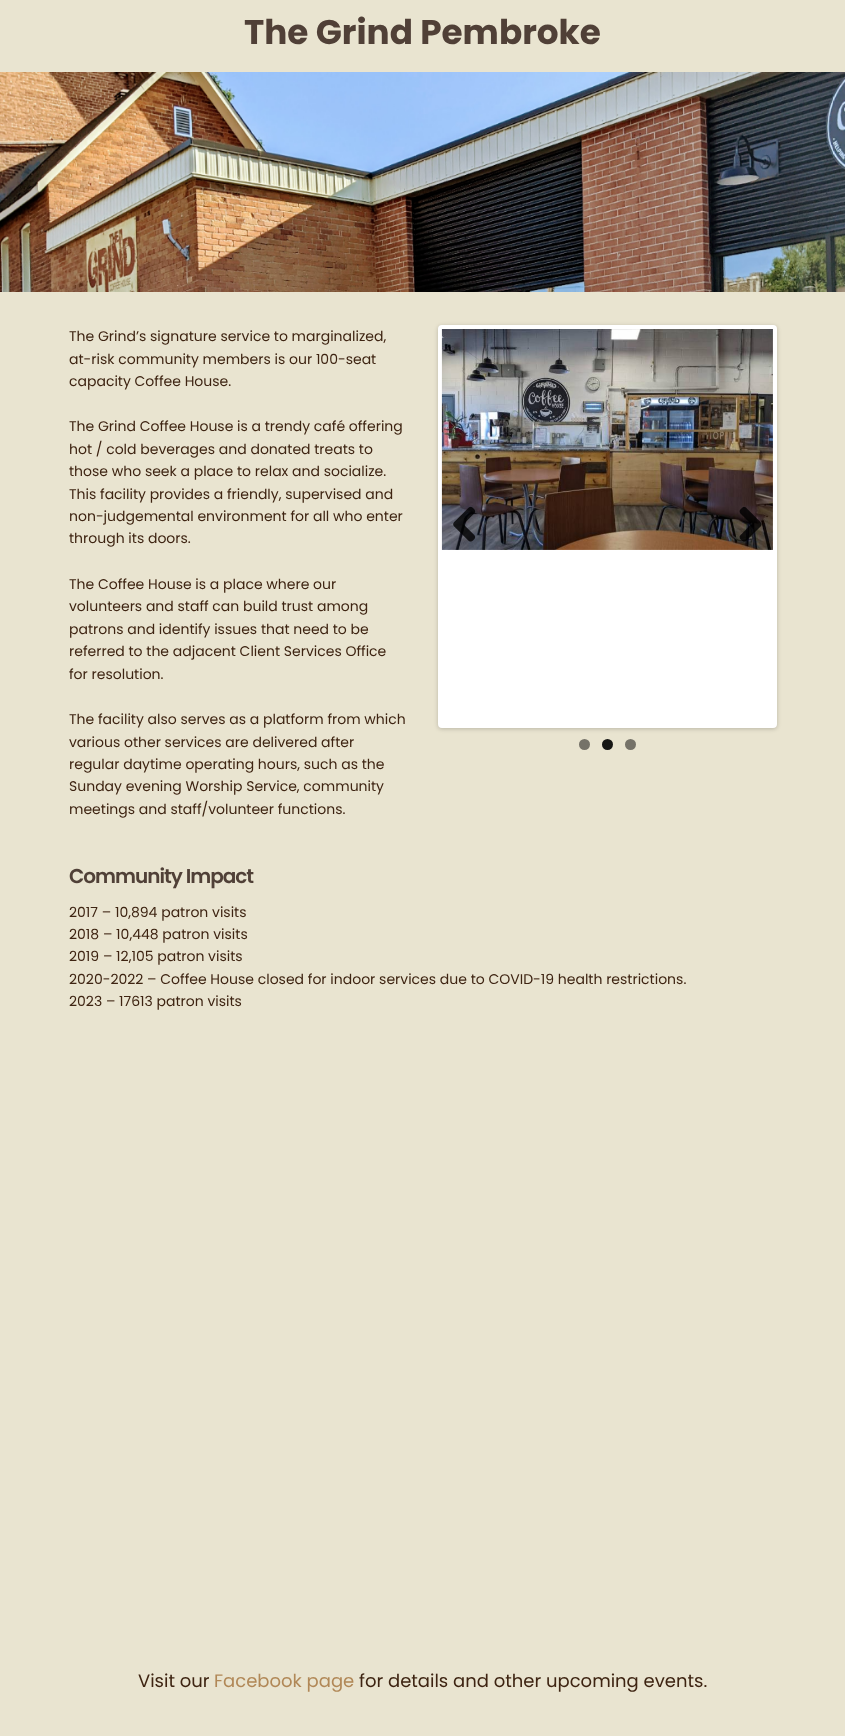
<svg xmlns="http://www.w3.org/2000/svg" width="845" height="1736">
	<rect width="100%" height="100%" fill="#E9E4D0" />
	<text x="244" y="44" font-family="Poppins" font-size="34.25" font-weight="700" fill="#504037">The Grind Pembroke</text>
	<image x="0" y="72" width="845" height="220" href="assets/img1.png" />
	<g font-family="Poppins" font-size="14" fill="#3E2412">
		<text x="69" y="341">The Grind’s signature service to marginalized,</text>
		<text x="69" y="364">at-risk community members is our 100-seat</text>
		<text x="69" y="386">capacity Coffee House.</text>
		<text x="69" y="431">The Grind Coffee House is a trendy café offering</text>
		<text x="69" y="454">hot / cold beverages and donated treats to</text>
		<text x="69" y="476">those who seek a place to relax and socialize.</text>
		<text x="69" y="499">This facility provides a friendly, supervised and</text>
		<text x="69" y="521">non-judgemental environment for all who enter</text>
		<text x="69" y="543">through its doors.</text>
		<text x="69" y="589">The Coffee House is a place where our</text>
		<text x="69" y="611">volunteers and staff can build trust among</text>
		<text x="69" y="634">patrons and identify issues that need to be</text>
		<text x="69" y="656">referred to the adjacent Client Services Office</text>
		<text x="69" y="679">for resolution.</text>
		<text x="69" y="724">The facility also serves as a platform from which</text>
		<text x="69" y="747">various other services are delivered after</text>
		<text x="69" y="769">regular daytime operating hours, such as the</text>
		<text x="69" y="791">Sunday evening Worship Service, community</text>
		<text x="69" y="814">meetings and staff/volunteer functions.</text>
	</g>
	<rect x="438" y="326" width="339" height="403" rx="4" fill="#000000" fill-opacity="0.2" filter="blur(2px)" />
	<rect x="440" y="327" width="335" height="399" rx="2" fill="#FFFFFF" stroke="#FFFFFF" stroke-width="4" />
	<image x="441" y="329" width="332" height="221" href="assets/img2.png" />
	<image x="453" y="506" width="23" height="36" href="assets/img3.png" />
	<image x="739" y="507" width="23" height="35" href="assets/img4.png" />
	<circle cx="584.5" cy="744.5" r="5.5" fill="#757268" />
	<circle cx="607.5" cy="744.5" r="5.5" fill="#171715" />
	<circle cx="630.5" cy="744.5" r="5.5" fill="#757268" />
	<text x="69" y="883" font-family="Poppins" font-size="20" font-weight="600" letter-spacing="-1" fill="#504037">Community Impact</text>
	<g font-family="Poppins" font-size="14" fill="#3E2412">
		<text x="69" y="917">2017 – 10,894 patron visits</text>
		<text x="69" y="939">2018 – 10,448 patron visits</text>
		<text x="69" y="961">2019 – 12,105 patron visits</text>
		<text x="69" y="984">2020-2022 – Coffee House closed for indoor services due to COVID-19 health restrictions.</text>
		<text x="69" y="1006">2023 – 17613 patron visits</text>
	</g>
	<text x="138" y="1687" font-family="Poppins" font-size="18" fill="#3E2412">Visit our</text>
	<text x="214" y="1687" font-family="Poppins" font-size="18" fill="#B18857">Facebook page</text>
	<text x="359" y="1687" font-family="Poppins" font-size="18" fill="#3E2412">for details and other upcoming events.</text>
</svg>
